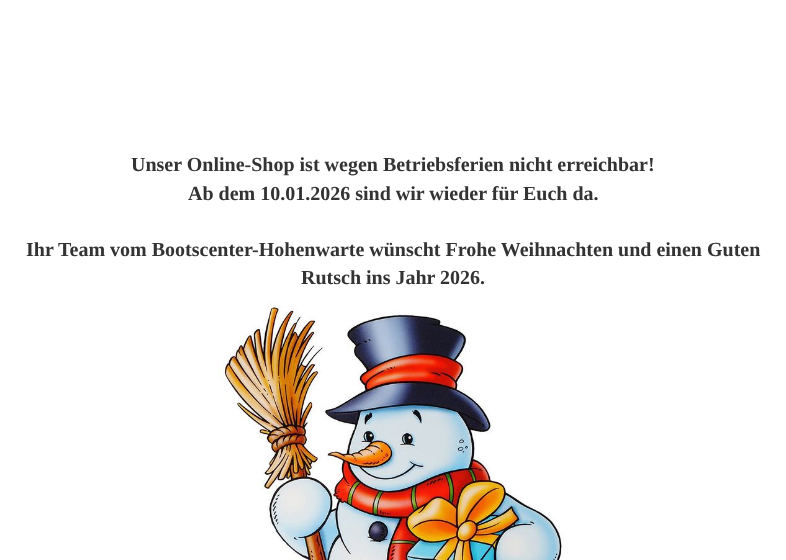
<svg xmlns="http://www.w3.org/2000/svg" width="786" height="560">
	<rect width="100%" height="100%" fill="#FFFFFF" />
	<g font-family="Liberation Serif" font-size="20" font-weight="700" fill="#333333">
		<text x="131" y="171">Unser Online-Shop ist wegen Betriebsferien nicht erreichbar!</text>
		<text x="188" y="200">Ab dem 10.01.2026 sind wir wieder für Euch da.</text>
		<text x="26" y="256">Ihr Team vom Bootscenter-Hohenwarte wünscht Frohe Weihnachten und einen Guten</text>
		<text x="301" y="284">Rutsch ins Jahr 2026.</text>
	</g>
	<image x="218" y="301" width="347" height="259" href="assets/img1.png" />
</svg>
